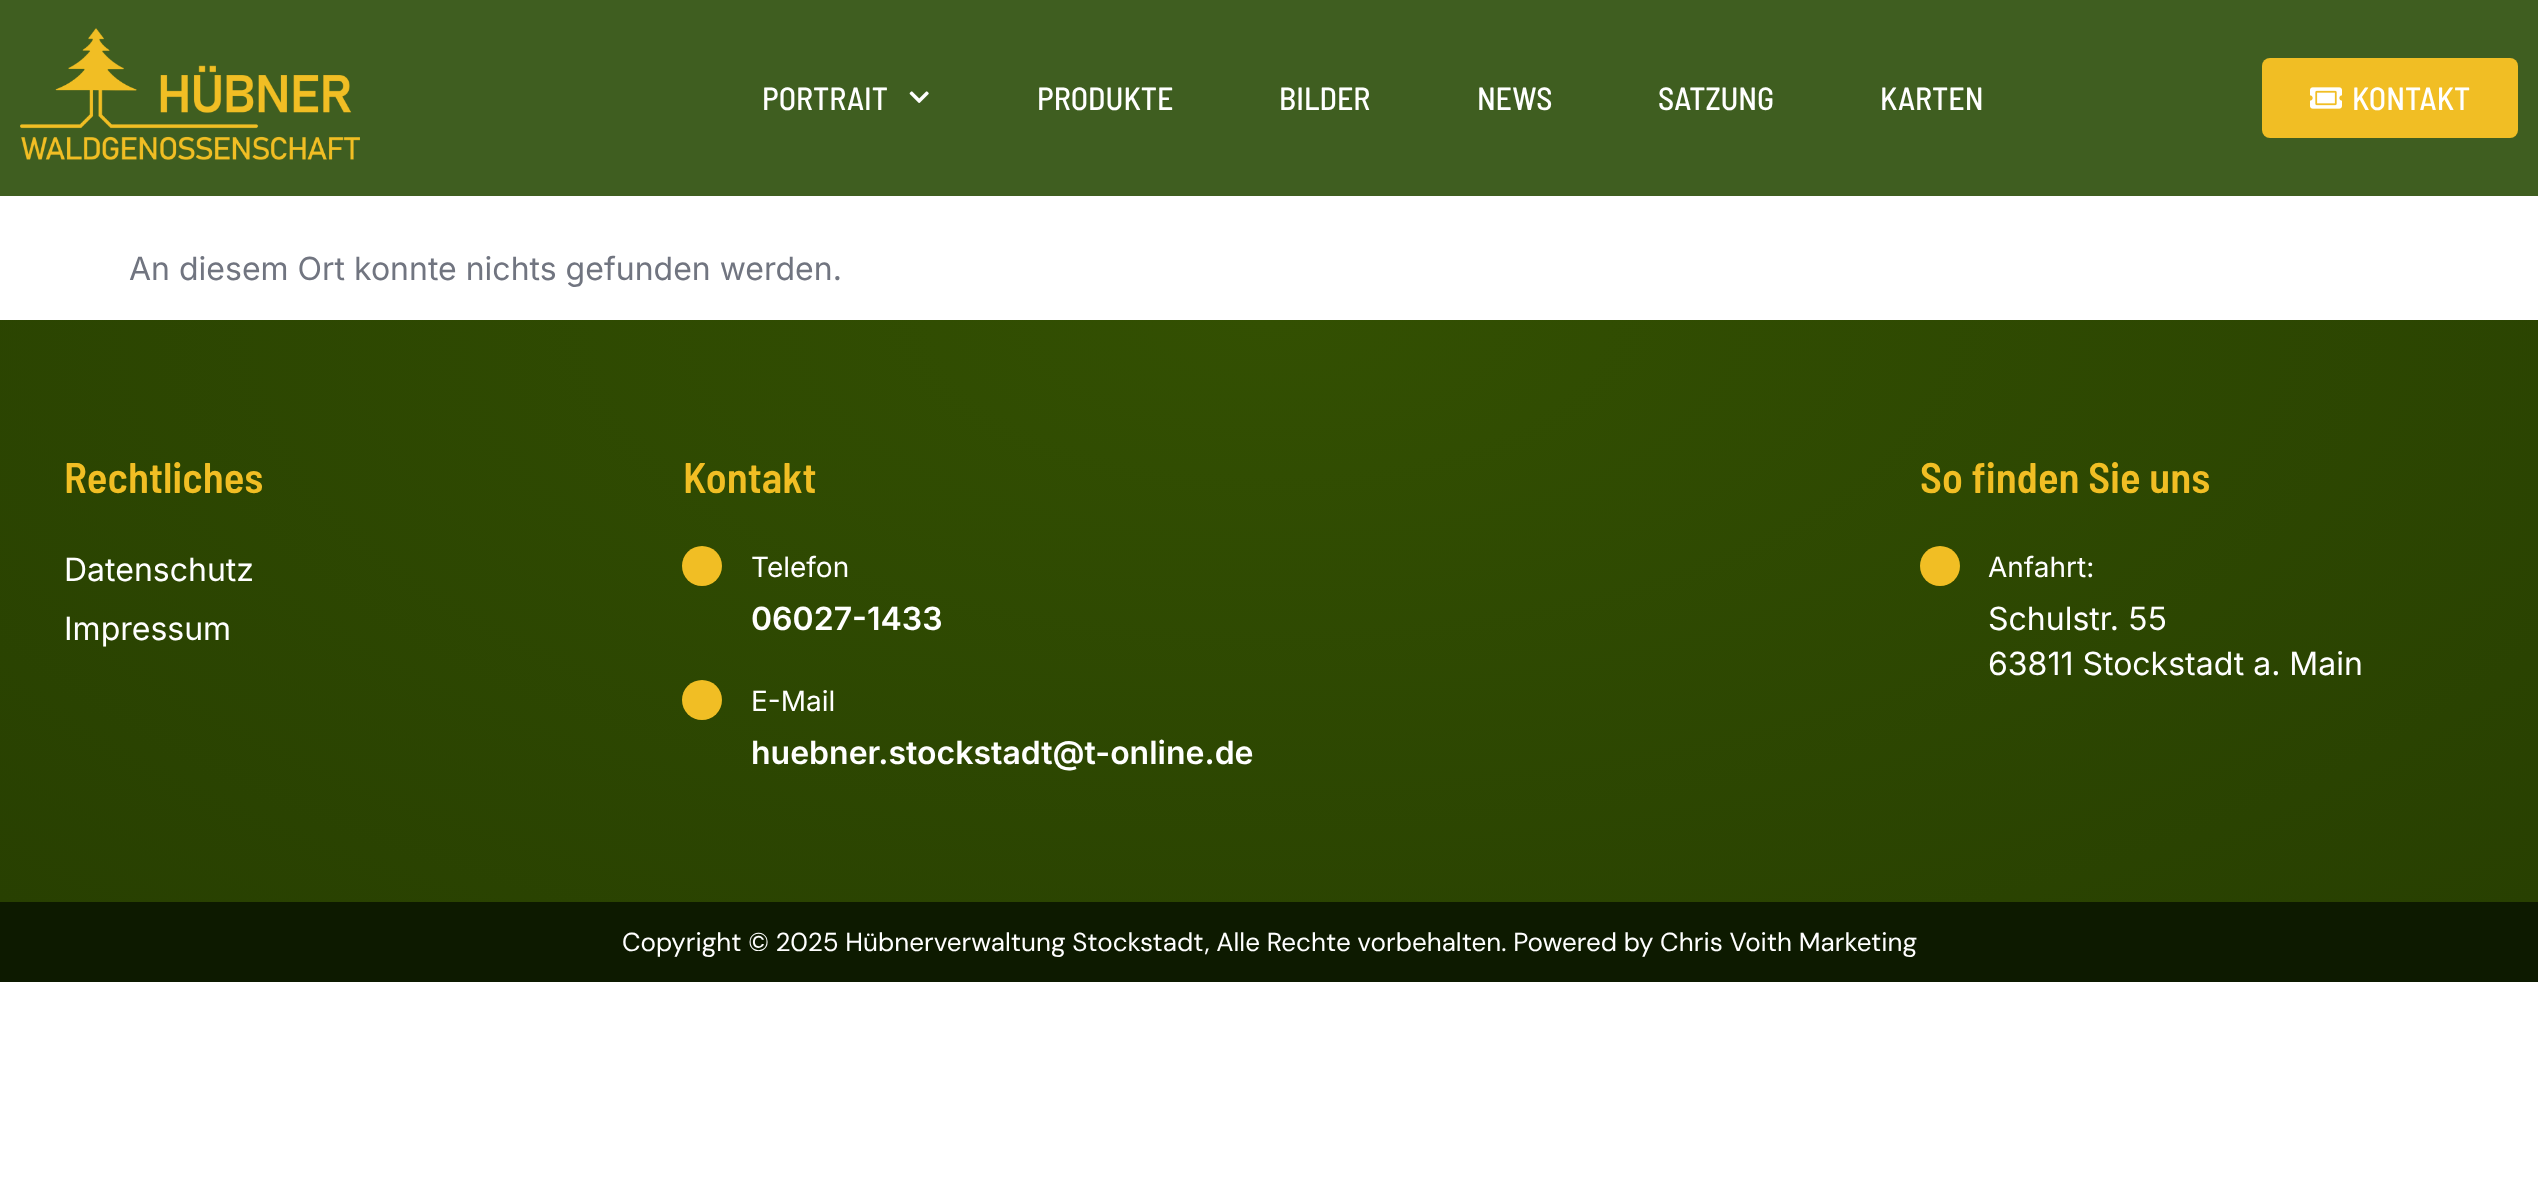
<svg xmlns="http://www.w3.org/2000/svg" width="2538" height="1197">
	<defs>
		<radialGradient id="g1" gradientUnits="userSpaceOnUse" cx="0" cy="0" r="1" gradientTransform="matrix(1795 0 0 823 1269 320)"><stop offset="0" stop-color="#335002" /><stop offset="1" stop-color="#284001" /></radialGradient>
	</defs>
	<rect width="100%" height="100%" fill="#FFFFFF" />
	<rect x="0" y="0" width="2538" height="196" fill="#3F5E20" />
	<image x="20" y="28" width="340" height="132" href="assets/img1.png" />
	<text x="762" y="110" font-family="Barlow Semi Condensed" font-size="32" font-weight="500" fill="#FFFFFF">PORTRAIT</text>
	<image x="909" y="91" width="20" height="12" href="assets/img2.png" />
	<g font-family="Barlow Semi Condensed" font-size="32" font-weight="500" fill="#FFFFFF">
		<text x="1037" y="110">PRODUKTE</text>
		<text x="1279" y="110">BILDER</text>
		<text x="1477" y="110">NEWS</text>
		<text x="1658" y="110">SATZUNG</text>
		<text x="1880" y="110">KARTEN</text>
	</g>
	<rect x="2262" y="58" width="256" height="80" rx="8" fill="#F1BE24" />
	<image x="2310" y="87" width="32" height="22" href="assets/img3.png" />
	<text x="2352" y="110" font-family="Barlow Semi Condensed" font-size="32" font-weight="500" fill="#FFFFFF">KONTAKT</text>
	<text x="129" y="280" font-family="Inter" font-size="32" fill="#717580">An diesem Ort konnte nichts gefunden werden.</text>
	<rect x="0" y="320" width="2538" height="582" fill="url(#g1)" />
	<text x="64" y="493" font-family="Barlow Semi Condensed" font-size="42.75" font-weight="600" fill="#F1BE24">Rechtliches</text>
	<g font-family="Inter" font-size="32" fill="#FFFFFF">
		<text x="64" y="581">Datenschutz</text>
		<text x="64" y="640">Impressum</text>
	</g>
	<text x="683" y="493" font-family="Barlow Semi Condensed" font-size="42.75" font-weight="600" fill="#F1BE24">Kontakt</text>
	<circle cx="702" cy="566" r="20" fill="#F1BE24" />
	<text x="751" y="577" font-family="Inter" font-size="28" fill="#FFFFFF">Telefon</text>
	<text x="751" y="630" font-family="Inter" font-size="32" font-weight="600" fill="#FFFFFF">06027-1433</text>
	<circle cx="702" cy="700" r="20" fill="#F1BE24" />
	<text x="751" y="711" font-family="Inter" font-size="28" fill="#FFFFFF">E-Mail</text>
	<text x="751" y="764" font-family="Inter" font-size="32" font-weight="600" fill="#FFFFFF">huebner.stockstadt@t-online.de</text>
	<text x="1920" y="493" font-family="Barlow Semi Condensed" font-size="42.75" font-weight="600" fill="#F1BE24">So finden Sie uns</text>
	<circle cx="1940" cy="566" r="20" fill="#F1BE24" />
	<text x="1988" y="577" font-family="Inter" font-size="28" fill="#FFFFFF">Anfahrt:</text>
	<g font-family="Inter" font-size="32" fill="#FFFFFF">
		<text x="1988" y="630">Schulstr. 55</text>
		<text x="1988" y="675">63811 Stockstadt a. Main</text>
	</g>
	<rect x="0" y="902" width="2538" height="80" fill="#0D1A00" />
	<text x="622" y="951" word-spacing="-0.25" font-family="DM Sans" font-size="26" fill="#FFFFFF">Copyright © 2025 Hübnerverwaltung Stockstadt, Alle Rechte vorbehalten. Powered by Chris Voith Marketing</text>
</svg>
